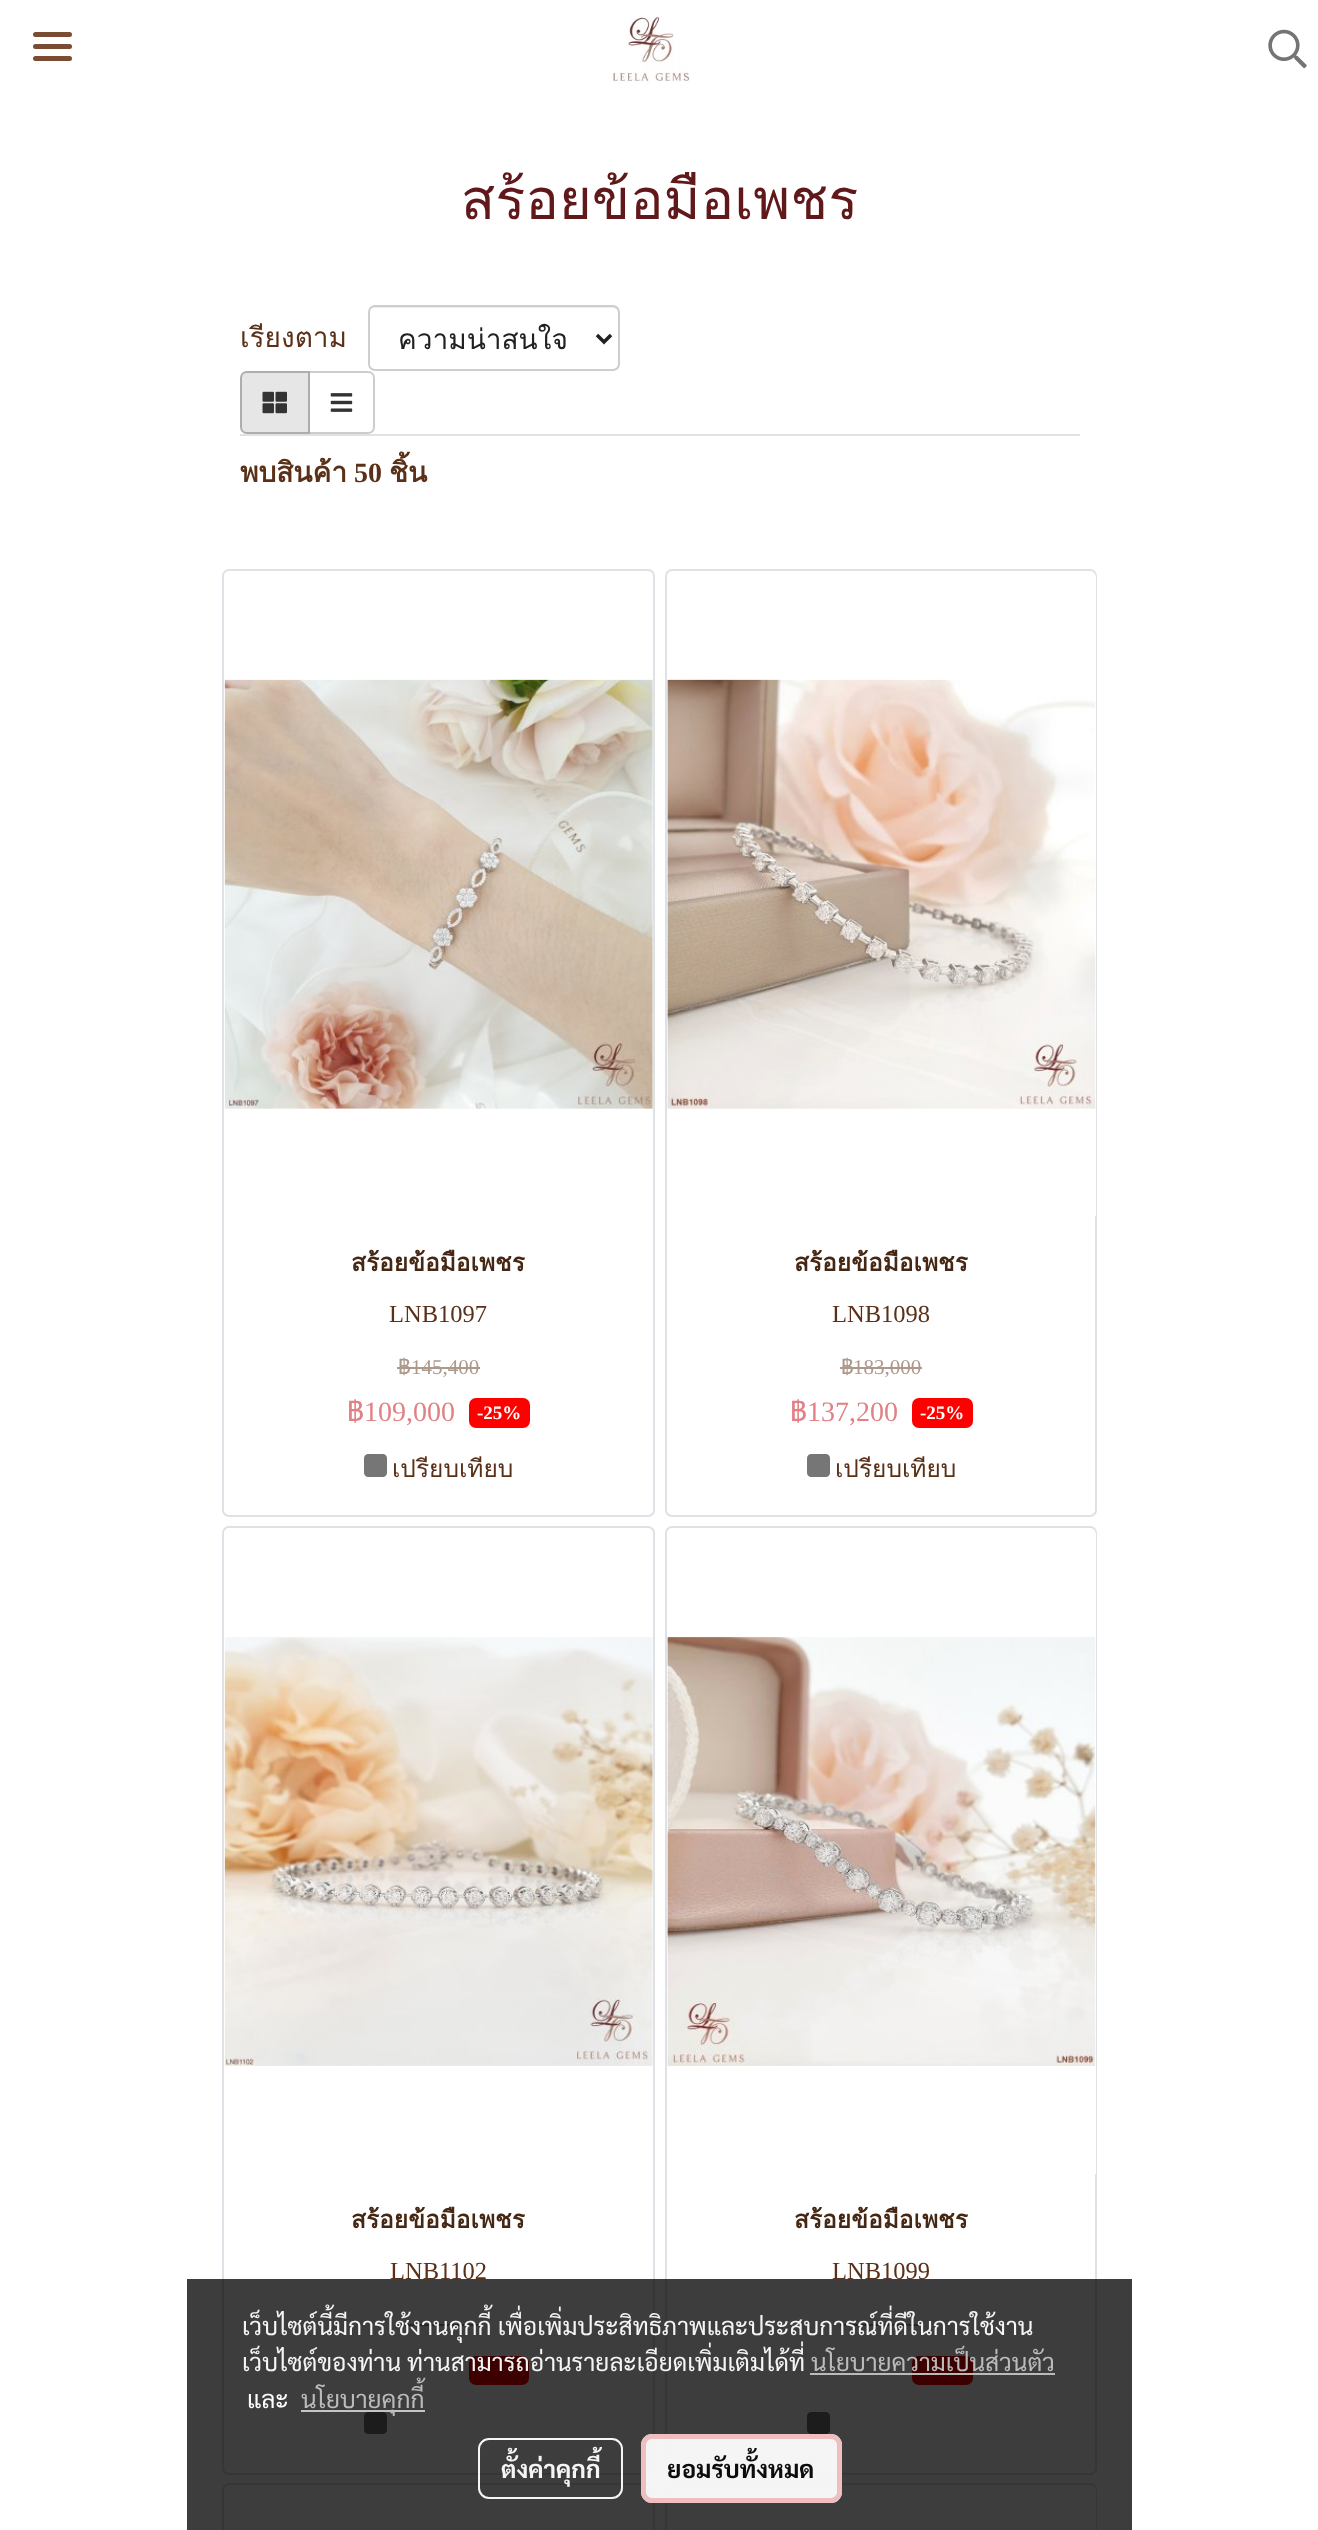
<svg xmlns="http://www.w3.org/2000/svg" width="1318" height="2530">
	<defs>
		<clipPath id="clip1"><rect x="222" y="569" width="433" height="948" rx="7" /></clipPath>
		<clipPath id="clip2"><rect x="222" y="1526" width="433" height="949" rx="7" /></clipPath>
		<clipPath id="clip3"><rect x="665" y="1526" width="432" height="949" rx="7" /></clipPath>
		<clipPath id="clip4"><rect x="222" y="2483" width="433" height="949" rx="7" /></clipPath>
	</defs>
	<rect width="100%" height="100%" fill="#FFFFFF" />
	<rect x="33" y="44" width="39" height="5" rx="2.5" fill="#7A4D32" />
	<rect x="33" y="32" width="39" height="5" rx="2.5" fill="#7A4D32" />
	<rect x="33" y="56" width="39" height="5" rx="2.5" fill="#7A4D32" />
	<image x="612" y="16" width="78" height="68" href="assets/img1.png" />
	<image x="1268" y="29" width="39" height="40" href="assets/img2.png" />
	<text x="461" y="219" font-family="Loma" font-size="56" fill="#60181A">สร้อยข้อมือเพชร</text>
	<text x="240" y="347" font-family="Loma" font-size="28" fill="#5A3118">เรียงตาม</text>
	<path d="M374 308H612C615 308 618 310 618 313C618 310 618 307 614 306H373C369 307 369 310 369 313C369 310 372 308 374 308Z" fill="#ECECEC" />
	<rect x="369" y="306" width="250" height="64" rx="6" fill="none" stroke="#CDCED2" stroke-width="2" />
	<path d="M597 335L604 342L611 335" fill="none" stroke="#212121" stroke-width="3.5" />
	<text x="398" y="349" font-family="Loma" font-size="28" fill="#212121">ความน่าสนใจ</text>
	<path d="M309 372H368C371.5 372 374 374.5 374 378V427C374 430.5 371.5 433 368 433H309Z" fill="none" stroke="#CCCCCC" stroke-width="2" />
	<path d="M247 372H309V433H247C243.5 433 241 430.5 241 427V378C241 374.5 243.5 372 247 372Z" fill="#E6E6E6" stroke="#ADADAD" stroke-width="2" />
	<image x="262" y="391" width="25" height="23" href="assets/img3.png" />
	<image x="330" y="393" width="23" height="19" href="assets/img4.png" />
	<rect x="240" y="434" width="840" height="2" fill="#DEE2E6" />
	<text x="240" y="482" font-family="Loma" font-size="28" font-weight="700" fill="#5A3118">พบสินค้า</text>
	<text x="354" y="482" font-family="Liberation Serif" font-size="28" font-weight="700" fill="#5A3118">50</text>
	<text x="389" y="482" font-family="Loma" font-size="28" font-weight="700" fill="#5A3118">ชิ้น</text>
	<g clip-path="url(#clip1)">
		<rect x="224" y="571" width="432" height="948" rx="7" fill="#000000" fill-opacity="0.1" filter="blur(4.5px)" />
	</g>
	<rect x="223" y="570" width="431" height="946" rx="6" fill="#FFFFFF" stroke="#DEE2E6" stroke-width="2" />
	<image x="224" y="679" width="429" height="430" href="assets/img5.png" />
	<text x="351" y="1271" font-family="Loma" font-size="24.5" font-weight="700" fill="#452713">สร้อยข้อมือเพชร</text>
	<text x="389" y="1322" font-family="Liberation Serif" font-size="24.5" fill="#5A3118">LNB1097</text>
	<text x="398" y="1374" font-family="Loma" font-size="21" fill="#AD988C">฿</text>
	<text x="411" y="1374" font-family="Liberation Serif" font-size="21" fill="#AD988C">145,400</text>
	<rect x="397" y="1367" width="83" height="2" fill="#AD988C" />
	<text x="347" y="1421" font-family="Loma" font-size="28" fill="#E18185">฿</text>
	<text x="364" y="1421" font-family="Liberation Serif" font-size="28" fill="#E18185">109,000</text>
	<rect x="469" y="1398" width="61" height="30" rx="7" fill="#FF0000" />
	<text x="477" y="1419" font-family="Liberation Serif" font-size="19" font-weight="700" fill="#FFFFFF">-25%</text>
	<path d="M368 1454H383C385 1454 387 1456 387 1458V1473C387 1475 385 1477 383 1477H368C366 1477 364 1475 364 1473V1458C364 1456 366 1454 368 1454Z" fill="#767676" />
	<text x="392" y="1477" font-family="Loma" font-size="24.5" fill="#5A3118">เปรียบเทียบ</text>
	<rect x="666" y="570" width="430" height="946" rx="6" fill="none" stroke="#DEE2E6" stroke-width="2" />
	<path d="M674 571H1089C1093 571 1096 574 1096 578V1216H667V578C667 574 670 571 674 571Z" fill="#FFFFFF" />
	<image x="667" y="679" width="429" height="430" href="assets/img6.png" />
	<text x="794" y="1271" font-family="Loma" font-size="24.5" font-weight="700" fill="#452713">สร้อยข้อมือเพชร</text>
	<text x="832" y="1322" font-family="Liberation Serif" font-size="24.5" fill="#5A3118">LNB1098</text>
	<text x="841" y="1374" font-family="Loma" font-size="21" fill="#AD988C">฿</text>
	<text x="853" y="1374" font-family="Liberation Serif" font-size="21" fill="#AD988C">183,000</text>
	<rect x="840" y="1367" width="82" height="2" fill="#AD988C" />
	<text x="790" y="1421" font-family="Loma" font-size="28" fill="#E18185">฿</text>
	<text x="807" y="1421" font-family="Liberation Serif" font-size="28" fill="#E18185">137,200</text>
	<rect x="912" y="1398" width="61" height="30" rx="7" fill="#FF0000" />
	<text x="920" y="1419" font-family="Liberation Serif" font-size="19" font-weight="700" fill="#FFFFFF">-25%</text>
	<path d="M811 1454H826C828 1454 830 1456 830 1458V1473C830 1475 828 1477 826 1477H811C809 1477 807 1475 807 1473V1458C807 1456 809 1454 811 1454Z" fill="#767676" />
	<text x="835" y="1477" font-family="Loma" font-size="24.5" fill="#5A3118">เปรียบเทียบ</text>
	<g clip-path="url(#clip2)">
		<rect x="224" y="1528" width="432" height="948" rx="7" fill="#000000" fill-opacity="0.1" filter="blur(4.5px)" />
	</g>
	<rect x="223" y="1527" width="431" height="947" rx="6" fill="#FFFFFF" stroke="#DEE2E6" stroke-width="2" />
	<image x="224" y="1637" width="429" height="429" href="assets/img7.png" />
	<text x="351" y="2228" font-family="Loma" font-size="24.5" font-weight="700" fill="#452713">สร้อยข้อมือเพชร</text>
	<text x="390" y="2279" font-family="Liberation Serif" font-size="24.5" fill="#5A3118">LNB1102</text>
	<rect x="397" y="2324" width="83" height="2" fill="#AD988C" />
	<rect x="469" y="2356" width="60" height="29" rx="7" fill="#FF0000" />
	<path d="M368 2412H383C385 2412 387 2414 387 2416V2430C387 2432 385 2434 383 2434H368C366 2434 364 2432 364 2430V2416C364 2414 366 2412 368 2412Z" fill="#767676" />
	<g clip-path="url(#clip3)">
		<rect x="667" y="1528" width="432" height="948" rx="7" fill="#000000" fill-opacity="0.1" filter="blur(4.5px)" />
	</g>
	<rect x="666" y="1527" width="430" height="947" rx="6" fill="#FFFFFF" stroke="#DEE2E6" stroke-width="2" />
	<path d="M674 1528H1089C1093 1528 1096 1531 1096 1535V2174H667V1535C667 1531 670 1528 674 1528Z" fill="#FFFFFF" />
	<image x="667" y="1637" width="429" height="429" href="assets/img8.png" />
	<text x="794" y="2228" font-family="Loma" font-size="24.5" font-weight="700" fill="#452713">สร้อยข้อมือเพชร</text>
	<text x="832" y="2279" font-family="Liberation Serif" font-size="24.5" fill="#5A3118">LNB1099</text>
	<rect x="840" y="2324" width="82" height="2" fill="#AD988C" />
	<rect x="912" y="2356" width="61" height="29" rx="7" fill="#FF0000" />
	<path d="M811 2412H826C828 2412 830 2414 830 2416V2430C830 2432 828 2434 826 2434H811C809 2434 807 2432 807 2430V2416C807 2414 809 2412 811 2412Z" fill="#767676" />
	<g clip-path="url(#clip4)">
		<rect x="224" y="2485" width="432" height="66" rx="7" fill="#000000" fill-opacity="0.1" filter="blur(4.5px)" />
	</g>
	<rect x="223" y="2484" width="431" height="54" rx="6" fill="#FFFFFF" stroke="#DEE2E6" stroke-width="2" />
	<rect x="666" y="2484" width="430" height="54" rx="6" fill="none" stroke="#DEE2E6" stroke-width="2" />
	<path d="M674 2485H1089C1093 2485 1096 2488 1096 2492V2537H667V2492C667 2488 670 2485 674 2485Z" fill="#FFFFFF" />
	<rect x="187" y="2279" width="945" height="251" fill="#000000" fill-opacity="0.76" />
	<g font-family="Sarabun" font-size="24.5" fill="#F5F5F5">
		<text x="242" y="2335">เว็บไซต์นี้มีการใช้งานคุกกี้ เพื่อเพิ่มประสิทธิภาพและประสบการณ์ที่ดีในการใช้งาน</text>
		<text x="242" y="2371">เว็บไซต์ของท่าน ท่านสามารถอ่านรายละเอียดเพิ่มเติมได้ที่</text>
	</g>
	<text x="811" y="2371" font-family="Sarabun" font-size="24.5" fill="#BBBBBB">นโยบายความเป็นส่วนตัว</text>
	<rect x="810" y="2373" width="245" height="2" fill="#C2C2C2" fill-opacity="0.95" />
	<text x="247" y="2408" font-family="Sarabun" font-size="24.5" fill="#FFFFFF">และ</text>
	<rect x="301" y="2410" width="124" height="2" fill="#C5C5C5" />
	<text x="301" y="2408" font-family="Sarabun" font-size="24.5" fill="#BBBBBB">นโยบายคุกกี้</text>
	<rect x="479" y="2439" width="143" height="59" rx="10" fill="none" stroke="#FFFFFF" stroke-opacity="0.95" stroke-width="2" />
	<text x="501" y="2478" font-family="Sarabun" font-size="24.5" font-weight="700" fill="#F5F5F5">ตั้งค่าคุกกี้</text>
	<rect x="641" y="2434" width="201" height="69" rx="11" fill="#FFFFFF" fill-opacity="0.95" />
	<rect x="643.5" y="2436.5" width="196" height="64" rx="8.5" fill="none" stroke="#EEBABC" stroke-opacity="0.95" stroke-width="5" />
	<text x="667" y="2478" font-family="Sarabun" font-size="24.5" font-weight="700" fill="#0C0C0C">ยอมรับทั้งหมด</text>
</svg>
